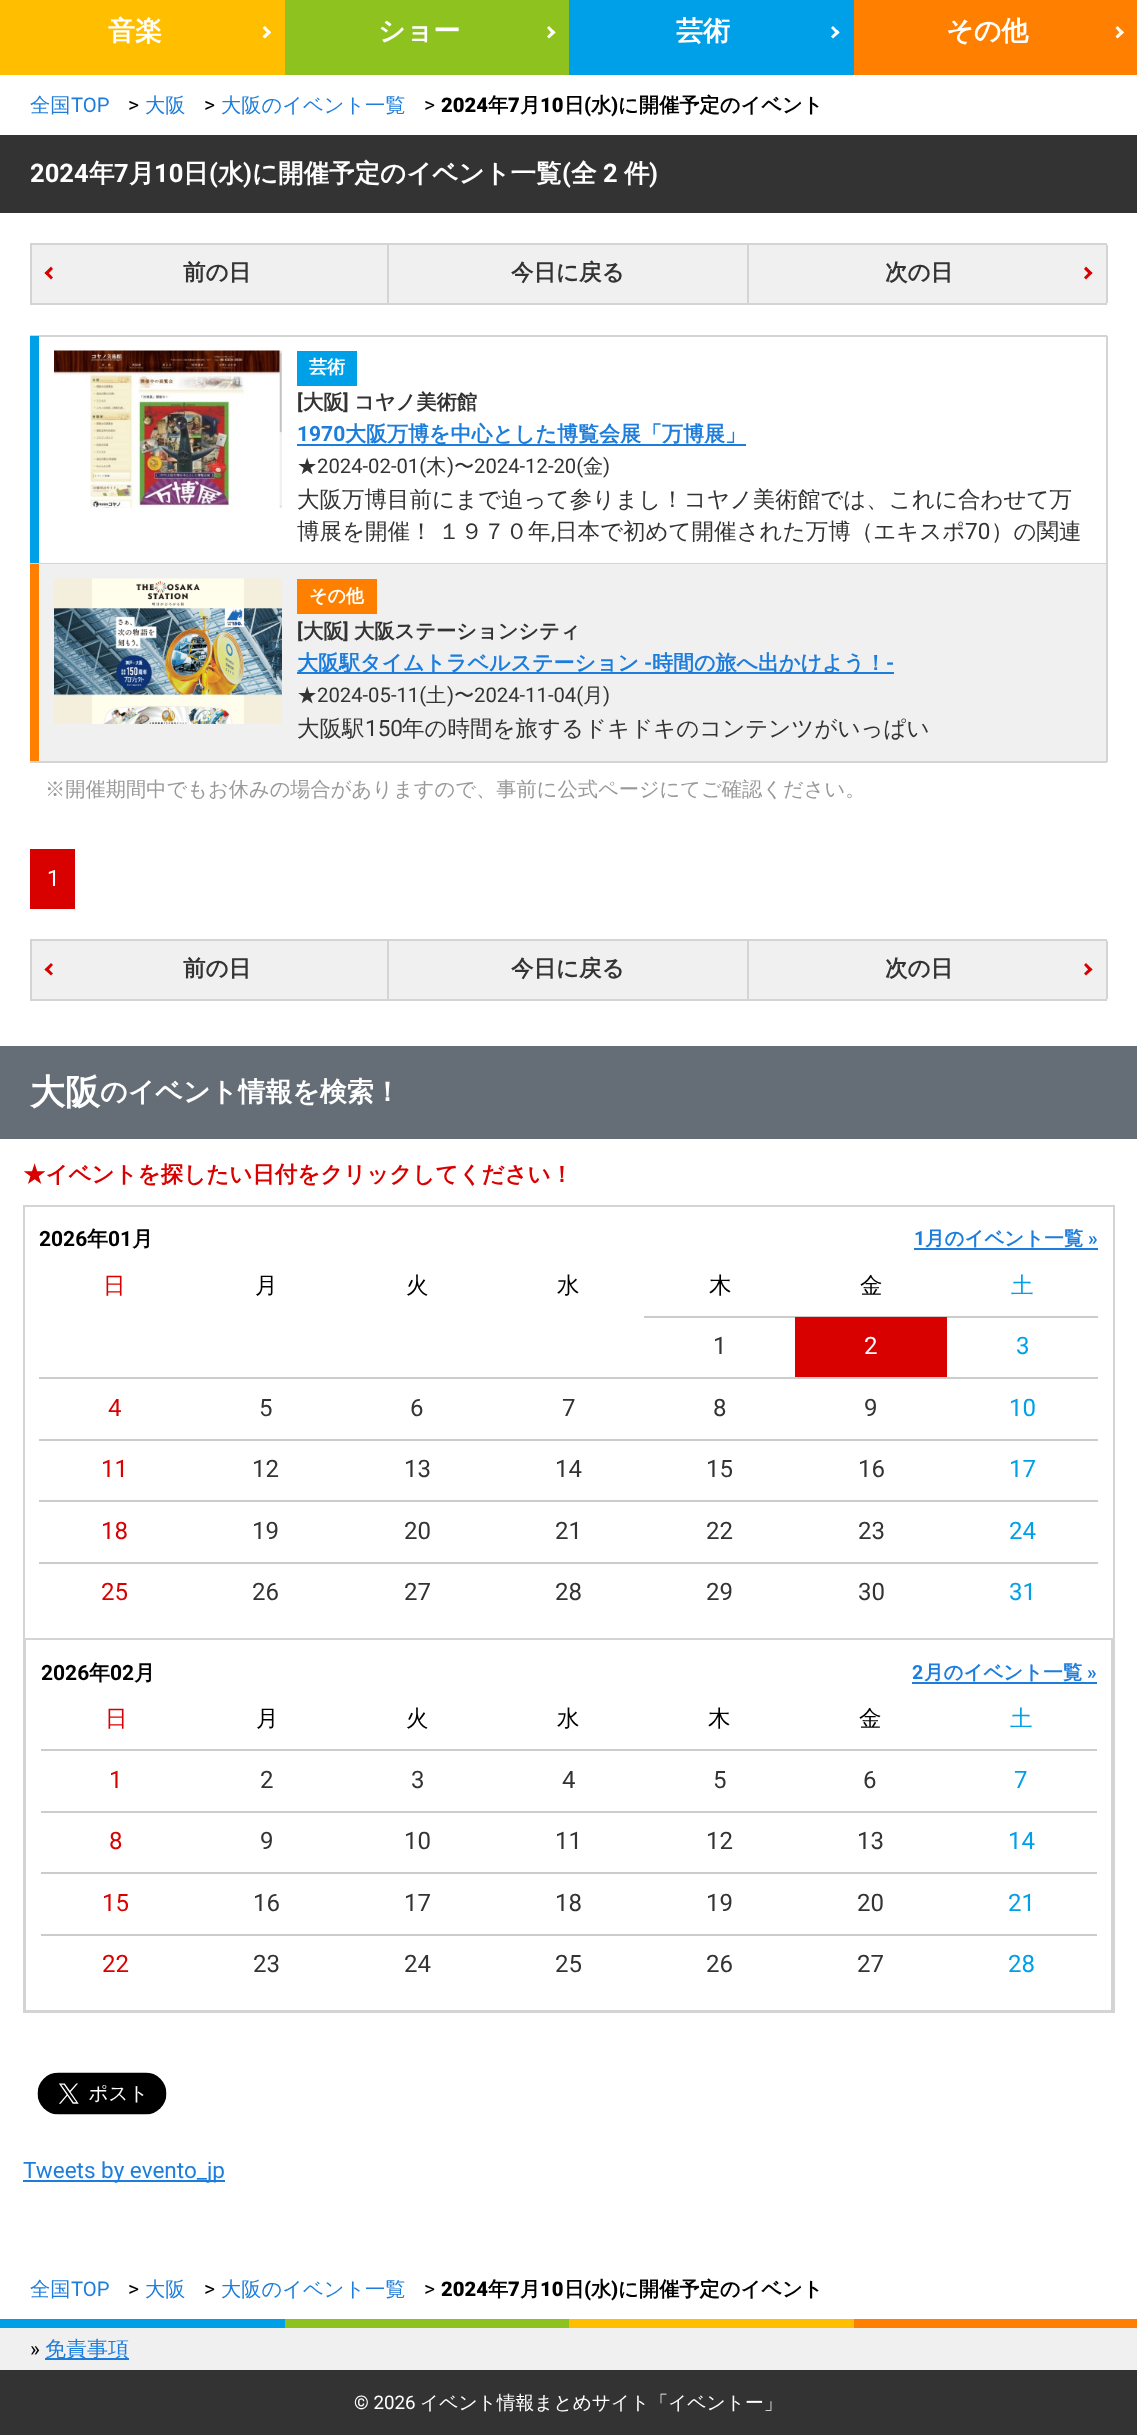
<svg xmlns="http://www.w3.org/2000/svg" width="1137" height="2435">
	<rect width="100%" height="100%" fill="#FFFFFF" />
	<rect x="0" y="0" width="285" height="75" fill="#FFBF00" />
	<text x="108" y="40" font-family="WenQuanYi Zen Hei" font-size="27" font-weight="700" fill="#FFFFFF">音楽</text>
	<path d="M265 26L271 32.5L269 34.5L262.5 28Z" fill="#FFFFFF" />
	<path d="M269 30L271 32.5L265 38.5L262.5 36.5Z" fill="#FFFFFF" />
	<rect x="285" y="0" width="284" height="75" fill="#8EC31F" />
	<text x="378" y="40" font-family="WenQuanYi Zen Hei" font-size="27" font-weight="700" fill="#FFFFFF">ショー</text>
	<path d="M549 26L555.5 32.5L553 34.5L547 28Z" fill="#FFFFFF" />
	<path d="M553 30L555.5 32.5L549 38.5L547 36.5Z" fill="#FFFFFF" />
	<rect x="569" y="0" width="285" height="75" fill="#00A0E9" />
	<text x="676" y="40" font-family="WenQuanYi Zen Hei" font-size="27" font-weight="700" fill="#FFFFFF">芸術</text>
	<path d="M833 26L839.5 32.5L837.5 34.5L831 28Z" fill="#FFFFFF" />
	<path d="M837.5 30L839.5 32.5L833 38.5L831 36.5Z" fill="#FFFFFF" />
	<rect x="854" y="0" width="283" height="75" fill="#FF8000" />
	<text x="946" y="40" font-family="WenQuanYi Zen Hei" font-size="27" font-weight="700" fill="#FFFFFF">その他</text>
	<path d="M1117.5 26L1124 32.5L1121.5 34.5L1115.5 28Z" fill="#FFFFFF" />
	<path d="M1121.5 30L1124 32.5L1117.5 38.5L1115.5 36.5Z" fill="#FFFFFF" />
	<text x="30" y="112" font-family="WenQuanYi Zen Hei" font-size="20.25" font-weight="500" fill="#1D7DDC">全国</text>
	<text x="71" y="112" font-family="Roboto" font-size="20.25" fill="#1D7DDC">TOP</text>
	<text x="128" y="112" font-family="Roboto" font-size="21" fill="#000000">&gt;</text>
	<text x="145" y="112" font-family="WenQuanYi Zen Hei" font-size="20.25" font-weight="500" fill="#1D7DDC">大阪</text>
	<text x="204" y="112" font-family="Roboto" font-size="21" fill="#000000">&gt;</text>
	<text x="221" y="112" font-family="WenQuanYi Zen Hei" font-size="20.25" font-weight="500" fill="#1D7DDC">大阪のイベント一覧</text>
	<text x="424" y="112" font-family="Roboto" font-size="21" fill="#000000">&gt;</text>
	<text x="441" y="112" font-family="Roboto" font-size="20.25" font-weight="900" fill="#000000">2024</text>
	<text x="488" y="112" font-family="WenQuanYi Zen Hei" font-size="20.25" font-weight="700" fill="#000000">年</text>
	<text x="508" y="112" font-family="Roboto" font-size="20.25" font-weight="900" fill="#000000">7</text>
	<text x="520" y="112" font-family="WenQuanYi Zen Hei" font-size="20.25" font-weight="700" fill="#000000">月</text>
	<text x="540" y="112" font-family="Roboto" font-size="20.25" font-weight="900" fill="#000000">10</text>
	<text x="564" y="112" font-family="WenQuanYi Zen Hei" font-size="20.25" font-weight="700" fill="#000000">日</text>
	<text x="584" y="112" font-family="Roboto" font-size="20.25" font-weight="900" fill="#000000">(</text>
	<text x="591" y="112" font-family="WenQuanYi Zen Hei" font-size="20.25" font-weight="700" fill="#000000">水</text>
	<text x="611" y="112" font-family="Roboto" font-size="20.25" font-weight="900" fill="#000000">)</text>
	<text x="618" y="112" font-family="WenQuanYi Zen Hei" font-size="20.25" font-weight="700" fill="#000000">に開催予定のイベント</text>
	<rect x="0" y="135" width="1137" height="78" fill="#333333" />
	<text x="30" y="182" font-family="Roboto" font-size="25.5" font-weight="700" fill="#FFFFFF">2024</text>
	<text x="89" y="182" font-family="WenQuanYi Zen Hei" font-size="25.5" font-weight="700" fill="#FFFFFF">年</text>
	<text x="114" y="182" font-family="Roboto" font-size="25.5" font-weight="700" fill="#FFFFFF">7</text>
	<text x="129" y="182" font-family="WenQuanYi Zen Hei" font-size="25.5" font-weight="700" fill="#FFFFFF">月</text>
	<text x="154" y="182" font-family="Roboto" font-size="25.5" font-weight="700" fill="#FFFFFF">10</text>
	<text x="183" y="182" font-family="WenQuanYi Zen Hei" font-size="25.5" font-weight="700" fill="#FFFFFF">日</text>
	<text x="209" y="182" font-family="Roboto" font-size="25.5" font-weight="700" fill="#FFFFFF">(</text>
	<text x="218" y="182" font-family="WenQuanYi Zen Hei" font-size="25.5" font-weight="700" fill="#FFFFFF">水</text>
	<text x="243" y="182" font-family="Roboto" font-size="25.5" font-weight="700" fill="#FFFFFF">)</text>
	<text x="252" y="182" font-family="WenQuanYi Zen Hei" font-size="25.5" font-weight="700" fill="#FFFFFF">に開催予定のイベント一覧</text>
	<text x="562" y="182" font-family="Roboto" font-size="25.5" font-weight="700" fill="#FFFFFF">(</text>
	<text x="571" y="182" font-family="WenQuanYi Zen Hei" font-size="25.5" font-weight="700" fill="#FFFFFF">全</text>
	<text x="603" y="182" font-family="Roboto" font-size="25.5" font-weight="700" fill="#FFFFFF">2</text>
	<text x="624" y="182" font-family="WenQuanYi Zen Hei" font-size="25.5" font-weight="700" fill="#FFFFFF">件</text>
	<text x="649" y="182" font-family="Roboto" font-size="25.5" font-weight="700" fill="#FFFFFF">)</text>
	<rect x="32" y="245" width="1074" height="58" fill="#F0F0F0" />
	<rect x="30" y="243" width="1077" height="2" fill="#D4D4D4" />
	<rect x="30" y="303" width="1077" height="2" fill="#D4D4D4" />
	<rect x="387" y="245" width="2" height="58" fill="#D4D4D4" />
	<rect x="30" y="245" width="2" height="58" fill="#D4D4D4" />
	<path d="M47 271L53 277.5L51 279.5L44.5 273Z" fill="#D90000" />
	<path d="M51 266.5L53 269L47 275L44.5 273Z" fill="#D90000" />
	<text x="183" y="280" font-family="WenQuanYi Zen Hei" font-size="22.5" font-weight="700" fill="#333333">前の日</text>
	<rect x="747" y="245" width="2" height="58" fill="#D4D4D4" />
	<text x="511" y="280" font-family="WenQuanYi Zen Hei" font-size="22.5" font-weight="700" fill="#333333">今日に戻る</text>
	<rect x="1106" y="245" width="2" height="58" fill="#D4D4D4" />
	<text x="885" y="280" font-family="WenQuanYi Zen Hei" font-size="22.5" font-weight="700" fill="#333333">次の日</text>
	<path d="M1086 266.5L1092.5 273L1090 275L1084 269Z" fill="#D90000" />
	<path d="M1090 271L1092.5 273L1086 279.5L1084 277.5Z" fill="#D90000" />
	<rect x="30" y="335" width="1077" height="2" fill="#D4D4D4" />
	<rect x="1106" y="336" width="2" height="426" fill="#D4D4D4" />
	<rect x="30" y="563" width="1077" height="1" fill="#D4D4D4" />
	<rect x="30" y="336" width="9" height="227" fill="#00A0E9" />
	<image x="54" y="350" width="228" height="158" href="assets/img1.png" />
	<rect x="297" y="351" width="60" height="35" fill="#00A0E9" />
	<text x="309" y="373" font-family="WenQuanYi Zen Hei" font-size="18" font-weight="700" fill="#FFFFFF">芸術</text>
	<text x="297" y="409" font-family="Roboto" font-size="20.25" font-weight="700" fill="#333333">[</text>
	<text x="303" y="409" font-family="WenQuanYi Zen Hei" font-size="20.25" font-weight="700" fill="#333333">大阪</text>
	<text x="343" y="409" font-family="Roboto" font-size="20.25" font-weight="700" fill="#333333">]</text>
	<text x="354" y="409" font-family="WenQuanYi Zen Hei" font-size="20.25" font-weight="700" fill="#333333">コヤノ美術館</text>
	<text x="297" y="441" font-family="Roboto" font-size="21" font-weight="700" fill="#1D7DDC">1970</text>
	<rect x="297" y="444" width="449" height="2" fill="#1D7DDC" />
	<text x="345" y="441" font-family="WenQuanYi Zen Hei" font-size="21" font-weight="700" fill="#1D7DDC">大阪万博を中心とした博覧会展「万博展」</text>
	<text x="297" y="473" font-family="WenQuanYi Zen Hei" font-size="20.25" font-weight="500" fill="#333333">★</text>
	<text x="317" y="473" font-family="Roboto" font-size="20.25" fill="#333333">2024-02-01(</text>
	<text x="426" y="473" font-family="WenQuanYi Zen Hei" font-size="20.25" font-weight="500" fill="#333333">木</text>
	<text x="447" y="473" font-family="Roboto" font-size="20.25" fill="#333333">)</text>
	<text x="454" y="473" font-family="WenQuanYi Zen Hei" font-size="20.25" font-weight="500" fill="#333333">〜</text>
	<text x="474" y="473" font-family="Roboto" font-size="20.25" fill="#333333">2024-12-20(</text>
	<text x="583" y="473" font-family="WenQuanYi Zen Hei" font-size="20.25" font-weight="500" fill="#333333">金</text>
	<text x="603" y="473" font-family="Roboto" font-size="20.25" fill="#333333">)</text>
	<g font-family="WenQuanYi Zen Hei" font-size="22.5" font-weight="500" fill="#333333">
		<text x="297" y="507">大阪万博目前にまで迫って参りまし！コヤノ美術館では、これに合わせて万</text>
		<text x="297" y="539">博展を開催！</text>
		<text x="438" y="539">１９７０年</text>
	</g>
	<text x="551" y="539" font-family="Roboto" font-size="22.5" fill="#333333">,</text>
	<text x="555" y="539" font-family="WenQuanYi Zen Hei" font-size="22.5" font-weight="500" fill="#333333">日本で初めて開催された万博（エキスポ</text>
	<text x="965" y="539" font-family="Roboto" font-size="22.5" fill="#333333">70</text>
	<text x="991" y="539" font-family="WenQuanYi Zen Hei" font-size="22.5" font-weight="500" fill="#333333">）の関連</text>
	<rect x="39" y="564" width="1067" height="197" fill="#F0F0F0" />
	<rect x="30" y="761" width="1077" height="2" fill="#D4D4D4" />
	<rect x="30" y="564" width="9" height="197" fill="#FF8000" />
	<image x="54" y="578" width="228" height="146" href="assets/img2.png" />
	<rect x="297" y="579" width="80" height="35" fill="#FF8000" />
	<text x="309" y="602" font-family="WenQuanYi Zen Hei" font-size="18" font-weight="700" fill="#FFFFFF">その他</text>
	<text x="297" y="638" font-family="Roboto" font-size="20.25" font-weight="700" fill="#333333">[</text>
	<text x="303" y="638" font-family="WenQuanYi Zen Hei" font-size="20.25" font-weight="700" fill="#333333">大阪</text>
	<text x="343" y="638" font-family="Roboto" font-size="20.25" font-weight="700" fill="#333333">]</text>
	<text x="354" y="638" font-family="WenQuanYi Zen Hei" font-size="20.25" font-weight="700" fill="#333333">大阪ステーションシティ</text>
	<rect x="297" y="672" width="597" height="2" fill="#1D7DDC" />
	<text x="297" y="670" font-family="WenQuanYi Zen Hei" font-size="21" font-weight="700" fill="#1D7DDC">大阪駅タイムトラベルステーション</text>
	<text x="644" y="670" font-family="Roboto" font-size="21" font-weight="700" fill="#1D7DDC">-</text>
	<text x="652" y="670" font-family="WenQuanYi Zen Hei" font-size="21" font-weight="700" fill="#1D7DDC">時間の旅へ出かけよう！</text>
	<text x="886" y="670" font-family="Roboto" font-size="21" font-weight="700" fill="#1D7DDC">-</text>
	<text x="297" y="702" font-family="WenQuanYi Zen Hei" font-size="20.25" font-weight="500" fill="#333333">★</text>
	<text x="317" y="702" font-family="Roboto" font-size="20.25" fill="#333333">2024-05-11(</text>
	<text x="426" y="702" font-family="WenQuanYi Zen Hei" font-size="20.25" font-weight="500" fill="#333333">土</text>
	<text x="447" y="702" font-family="Roboto" font-size="20.25" fill="#333333">)</text>
	<text x="454" y="702" font-family="WenQuanYi Zen Hei" font-size="20.25" font-weight="500" fill="#333333">〜</text>
	<text x="474" y="702" font-family="Roboto" font-size="20.25" fill="#333333">2024-11-04(</text>
	<text x="583" y="702" font-family="WenQuanYi Zen Hei" font-size="20.25" font-weight="500" fill="#333333">月</text>
	<text x="603" y="702" font-family="Roboto" font-size="20.25" fill="#333333">)</text>
	<text x="297" y="736" font-family="WenQuanYi Zen Hei" font-size="22.5" font-weight="500" fill="#333333">大阪駅</text>
	<text x="365" y="736" font-family="Roboto" font-size="22.5" fill="#333333">150</text>
	<text x="402" y="736" font-family="WenQuanYi Zen Hei" font-size="22.5" font-weight="500" fill="#333333">年の時間を旅するドキドキのコンテンツがいっぱい</text>
	<text x="45" y="796" font-family="WenQuanYi Zen Hei" font-size="20.25" font-weight="500" fill="#999999">※開催期間中でもお休みの場合がありますので、事前に公式ページにてご確認ください。</text>
	<rect x="30" y="849" width="45" height="60" fill="#D90000" />
	<text x="47" y="886" font-family="Roboto" font-size="22.5" fill="#FFFFFF">1</text>
	<rect x="32" y="941" width="1074" height="58" fill="#F0F0F0" />
	<rect x="30" y="939" width="1077" height="2" fill="#D4D4D4" />
	<rect x="30" y="999" width="1077" height="2" fill="#D4D4D4" />
	<rect x="387" y="941" width="2" height="58" fill="#D4D4D4" />
	<rect x="30" y="941" width="2" height="58" fill="#D4D4D4" />
	<path d="M47 967.5L53 973.5L51 975.5L44.5 969.5Z" fill="#D90000" />
	<path d="M51 963L53 965L47 971.5L44.5 969.5Z" fill="#D90000" />
	<text x="183" y="976" font-family="WenQuanYi Zen Hei" font-size="22.5" font-weight="700" fill="#333333">前の日</text>
	<rect x="747" y="941" width="2" height="58" fill="#D4D4D4" />
	<text x="511" y="976" font-family="WenQuanYi Zen Hei" font-size="22.5" font-weight="700" fill="#333333">今日に戻る</text>
	<rect x="1106" y="941" width="2" height="58" fill="#D4D4D4" />
	<text x="885" y="976" font-family="WenQuanYi Zen Hei" font-size="22.5" font-weight="700" fill="#333333">次の日</text>
	<path d="M1086 963L1092.5 969.5L1090 971.5L1084 965Z" fill="#D90000" />
	<path d="M1090 967.5L1092.5 969.5L1086 975.5L1084 973.5Z" fill="#D90000" />
	<rect x="0" y="1046" width="1137" height="93" fill="#656E77" />
	<text x="30" y="1104" font-family="WenQuanYi Zen Hei" font-size="35" font-weight="700" fill="#FFFFFF">大阪</text>
	<text x="100" y="1101" font-family="WenQuanYi Zen Hei" font-size="27" font-weight="700" fill="#FFFFFF">のイベント情報を検索！</text>
	<text x="23" y="1182" font-family="WenQuanYi Zen Hei" font-size="22.5" font-weight="700" fill="#D90000">★イベントを探したい日付をクリックしてください！</text>
	<rect x="24" y="1206" width="1090" height="806" fill="none" stroke="#D4D4D4" stroke-width="2" />
	<text x="39" y="1246" font-family="Roboto" font-size="21" font-weight="700" fill="#000000">2026</text>
	<text x="87" y="1246" font-family="WenQuanYi Zen Hei" font-size="21" font-weight="700" fill="#000000">年</text>
	<text x="108" y="1246" font-family="Roboto" font-size="21" font-weight="700" fill="#000000">01</text>
	<text x="132" y="1246" font-family="WenQuanYi Zen Hei" font-size="21" font-weight="700" fill="#000000">月</text>
	<text x="914" y="1245" font-family="Roboto" font-size="19.5" font-weight="700" fill="#1D7DDC">1</text>
	<text x="925" y="1245" font-family="WenQuanYi Zen Hei" font-size="19.5" font-weight="700" fill="#1D7DDC">月のイベント一覧</text>
	<text x="1088" y="1245" font-family="Roboto" font-size="19.5" font-weight="700" fill="#1D7DDC">»</text>
	<rect x="914" y="1248" width="184" height="2" fill="#1D7DDC" />
	<text x="103" y="1293" font-family="WenQuanYi Zen Hei" font-size="22.5" font-weight="500" fill="#D90000">日</text>
	<g font-family="WenQuanYi Zen Hei" font-size="22.5" font-weight="500" fill="#000000">
		<text x="255" y="1293">月</text>
		<text x="406" y="1293">火</text>
		<text x="557" y="1293">水</text>
		<text x="709" y="1293">木</text>
		<text x="860" y="1293">金</text>
	</g>
	<text x="1011" y="1293" font-family="WenQuanYi Zen Hei" font-size="22.5" font-weight="500" fill="#00A0E9">土</text>
	<rect x="644" y="1316" width="151" height="2" fill="#CCCCCC" />
	<text x="713" y="1354" font-family="Roboto" font-size="24" fill="#333333">1</text>
	<rect x="795" y="1316" width="152" height="1" fill="#CCCCCC" />
	<rect x="795" y="1317" width="152" height="60" fill="#D90000" />
	<text x="864" y="1354" font-family="Roboto" font-size="24" fill="#FFFFFF">2</text>
	<rect x="947" y="1316" width="151" height="2" fill="#CCCCCC" />
	<text x="1016" y="1354" font-family="Roboto" font-size="24" fill="#00A0E9">3</text>
	<rect x="39" y="1377" width="1059" height="2" fill="#CCCCCC" />
	<text x="108" y="1416" font-family="Roboto" font-size="24" fill="#D90000">4</text>
	<g font-family="Roboto" font-size="24" fill="#333333">
		<text x="259" y="1416">5</text>
		<text x="410" y="1416">6</text>
		<text x="562" y="1416">7</text>
		<text x="713" y="1416">8</text>
		<text x="864" y="1416">9</text>
	</g>
	<text x="1009" y="1416" font-family="Roboto" font-size="24" fill="#00A0E9">10</text>
	<rect x="39" y="1439" width="1059" height="2" fill="#CCCCCC" />
	<text x="101" y="1477" font-family="Roboto" font-size="24" fill="#D90000">11</text>
	<g font-family="Roboto" font-size="24" fill="#333333">
		<text x="252" y="1477">12</text>
		<text x="404" y="1477">13</text>
		<text x="555" y="1477">14</text>
		<text x="706" y="1477">15</text>
		<text x="858" y="1477">16</text>
	</g>
	<text x="1009" y="1477" font-family="Roboto" font-size="24" fill="#00A0E9">17</text>
	<rect x="39" y="1500" width="1059" height="2" fill="#CCCCCC" />
	<text x="101" y="1539" font-family="Roboto" font-size="24" fill="#D90000">18</text>
	<g font-family="Roboto" font-size="24" fill="#333333">
		<text x="252" y="1539">19</text>
		<text x="404" y="1539">20</text>
		<text x="555" y="1539">21</text>
		<text x="706" y="1539">22</text>
		<text x="858" y="1539">23</text>
	</g>
	<text x="1009" y="1539" font-family="Roboto" font-size="24" fill="#00A0E9">24</text>
	<rect x="39" y="1562" width="1059" height="2" fill="#CCCCCC" />
	<text x="101" y="1600" font-family="Roboto" font-size="24" fill="#D90000">25</text>
	<g font-family="Roboto" font-size="24" fill="#333333">
		<text x="252" y="1600">26</text>
		<text x="404" y="1600">27</text>
		<text x="555" y="1600">28</text>
		<text x="706" y="1600">29</text>
		<text x="858" y="1600">30</text>
	</g>
	<text x="1009" y="1600" font-family="Roboto" font-size="24" fill="#00A0E9">31</text>
	<rect x="25" y="1639" width="1087" height="372" fill="none" stroke="#D4D4D4" stroke-width="2" />
	<text x="41" y="1680" font-family="Roboto" font-size="21" font-weight="700" fill="#000000">2026</text>
	<text x="89" y="1680" font-family="WenQuanYi Zen Hei" font-size="21" font-weight="700" fill="#000000">年</text>
	<text x="110" y="1680" font-family="Roboto" font-size="21" font-weight="700" fill="#000000">02</text>
	<text x="134" y="1680" font-family="WenQuanYi Zen Hei" font-size="21" font-weight="700" fill="#000000">月</text>
	<text x="912" y="1679" font-family="Roboto" font-size="19.5" font-weight="700" fill="#1D7DDC">2</text>
	<text x="924" y="1679" font-family="WenQuanYi Zen Hei" font-size="19.5" font-weight="700" fill="#1D7DDC">月のイベント一覧</text>
	<text x="1087" y="1679" font-family="Roboto" font-size="19.5" font-weight="700" fill="#1D7DDC">»</text>
	<rect x="912" y="1682" width="185" height="2" fill="#1D7DDC" />
	<text x="105" y="1726" font-family="WenQuanYi Zen Hei" font-size="22.5" font-weight="500" fill="#D90000">日</text>
	<g font-family="WenQuanYi Zen Hei" font-size="22.5" font-weight="500" fill="#000000">
		<text x="256" y="1726">月</text>
		<text x="406" y="1726">火</text>
		<text x="557" y="1726">水</text>
		<text x="708" y="1726">木</text>
		<text x="859" y="1726">金</text>
	</g>
	<text x="1010" y="1726" font-family="WenQuanYi Zen Hei" font-size="22.5" font-weight="500" fill="#00A0E9">土</text>
	<rect x="41" y="1749" width="1056" height="2" fill="#CCCCCC" />
	<text x="109" y="1788" font-family="Roboto" font-size="24" fill="#D90000">1</text>
	<g font-family="Roboto" font-size="24" fill="#333333">
		<text x="260" y="1788">2</text>
		<text x="411" y="1788">3</text>
		<text x="562" y="1788">4</text>
		<text x="713" y="1788">5</text>
		<text x="863" y="1788">6</text>
	</g>
	<text x="1014" y="1788" font-family="Roboto" font-size="24" fill="#00A0E9">7</text>
	<rect x="41" y="1811" width="1056" height="2" fill="#CCCCCC" />
	<text x="109" y="1849" font-family="Roboto" font-size="24" fill="#D90000">8</text>
	<g font-family="Roboto" font-size="24" fill="#333333">
		<text x="260" y="1849">9</text>
		<text x="404" y="1849">10</text>
		<text x="555" y="1849">11</text>
		<text x="706" y="1849">12</text>
		<text x="857" y="1849">13</text>
	</g>
	<text x="1008" y="1849" font-family="Roboto" font-size="24" fill="#00A0E9">14</text>
	<rect x="41" y="1872" width="1056" height="2" fill="#CCCCCC" />
	<text x="102" y="1911" font-family="Roboto" font-size="24" fill="#D90000">15</text>
	<g font-family="Roboto" font-size="24" fill="#333333">
		<text x="253" y="1911">16</text>
		<text x="404" y="1911">17</text>
		<text x="555" y="1911">18</text>
		<text x="706" y="1911">19</text>
		<text x="857" y="1911">20</text>
	</g>
	<text x="1008" y="1911" font-family="Roboto" font-size="24" fill="#00A0E9">21</text>
	<rect x="41" y="1934" width="1056" height="2" fill="#CCCCCC" />
	<text x="102" y="1972" font-family="Roboto" font-size="24" fill="#D90000">22</text>
	<g font-family="Roboto" font-size="24" fill="#333333">
		<text x="253" y="1972">23</text>
		<text x="404" y="1972">24</text>
		<text x="555" y="1972">25</text>
		<text x="706" y="1972">26</text>
		<text x="857" y="1972">27</text>
	</g>
	<text x="1008" y="1972" font-family="Roboto" font-size="24" fill="#00A0E9">28</text>
	<image x="37" y="2072" width="130" height="43" href="assets/img3.png" />
	<rect x="23" y="2180" width="202" height="2" fill="#1D7DDC" />
	<text x="23" y="2178" font-family="Roboto" font-size="22.5" fill="#1D7DDC">Tweets by evento_jp</text>
	<text x="30" y="2296" font-family="WenQuanYi Zen Hei" font-size="20.25" font-weight="500" fill="#1D7DDC">全国</text>
	<text x="71" y="2296" font-family="Roboto" font-size="20.25" fill="#1D7DDC">TOP</text>
	<text x="128" y="2296" font-family="Roboto" font-size="21" fill="#000000">&gt;</text>
	<text x="145" y="2296" font-family="WenQuanYi Zen Hei" font-size="20.25" font-weight="500" fill="#1D7DDC">大阪</text>
	<text x="204" y="2296" font-family="Roboto" font-size="21" fill="#000000">&gt;</text>
	<text x="221" y="2296" font-family="WenQuanYi Zen Hei" font-size="20.25" font-weight="500" fill="#1D7DDC">大阪のイベント一覧</text>
	<text x="424" y="2296" font-family="Roboto" font-size="21" fill="#000000">&gt;</text>
	<text x="441" y="2296" font-family="Roboto" font-size="20.25" font-weight="900" fill="#000000">2024</text>
	<text x="488" y="2296" font-family="WenQuanYi Zen Hei" font-size="20.25" font-weight="700" fill="#000000">年</text>
	<text x="508" y="2296" font-family="Roboto" font-size="20.25" font-weight="900" fill="#000000">7</text>
	<text x="520" y="2296" font-family="WenQuanYi Zen Hei" font-size="20.25" font-weight="700" fill="#000000">月</text>
	<text x="540" y="2296" font-family="Roboto" font-size="20.25" font-weight="900" fill="#000000">10</text>
	<text x="564" y="2296" font-family="WenQuanYi Zen Hei" font-size="20.25" font-weight="700" fill="#000000">日</text>
	<text x="584" y="2296" font-family="Roboto" font-size="20.25" font-weight="900" fill="#000000">(</text>
	<text x="591" y="2296" font-family="WenQuanYi Zen Hei" font-size="20.25" font-weight="700" fill="#000000">水</text>
	<text x="611" y="2296" font-family="Roboto" font-size="20.25" font-weight="900" fill="#000000">)</text>
	<text x="618" y="2296" font-family="WenQuanYi Zen Hei" font-size="20.25" font-weight="700" fill="#000000">に開催予定のイベント</text>
	<rect x="0" y="2319" width="285" height="9" fill="#00A0E9" />
	<rect x="285" y="2319" width="284" height="9" fill="#8EC31F" />
	<rect x="569" y="2319" width="285" height="9" fill="#FFBF00" />
	<rect x="854" y="2319" width="283" height="9" fill="#FF8000" />
	<rect x="0" y="2328" width="1137" height="42" fill="#F0F0F0" />
	<text x="30" y="2356" font-family="Roboto" font-size="21" fill="#000000">»</text>
	<rect x="45" y="2358" width="84" height="2" fill="#1D7DDC" />
	<text x="45" y="2356" font-family="WenQuanYi Zen Hei" font-size="21" font-weight="500" fill="#1D7DDC">免責事項</text>
	<rect x="0" y="2370" width="1137" height="65" fill="#333333" />
	<text x="354" y="2409" font-family="Roboto" font-size="18.75" fill="#FFFFFF">© 2026</text>
	<text x="420" y="2409" font-family="WenQuanYi Zen Hei" font-size="18.75" font-weight="500" fill="#FFFFFF">イベント情報まとめサイト「イベントー」</text>
</svg>
